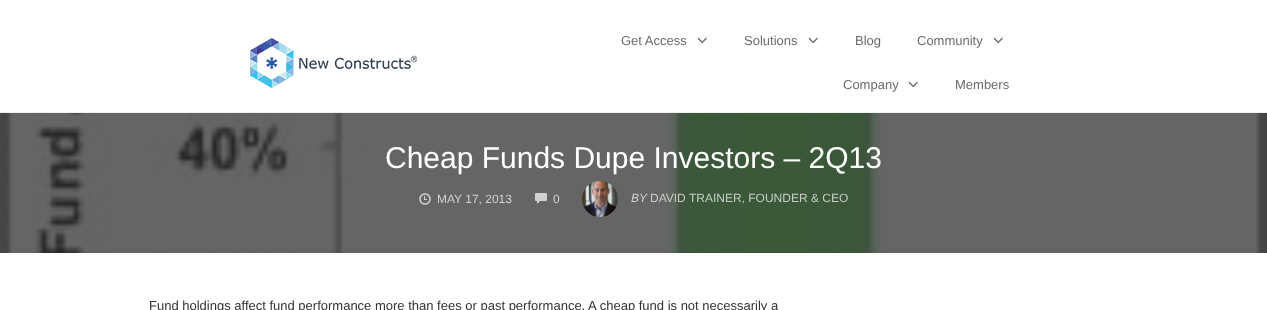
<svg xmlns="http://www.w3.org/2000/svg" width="1267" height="310">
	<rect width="100%" height="100%" fill="#FFFFFF" />
	<rect x="0" y="112" width="1267" height="1" fill="#F0F0F0" />
	<image x="250" y="38" width="167" height="50" href="assets/img1.png" />
	<text x="621" y="45" font-family="Liberation Sans" font-size="13" fill="#6B6B6B">Get Access</text>
	<image x="697" y="37" width="10" height="7" href="assets/img2.png" />
	<text x="744" y="45" font-family="Liberation Sans" font-size="13" fill="#6B6B6B">Solutions</text>
	<image x="808" y="37" width="10" height="7" href="assets/img2.png" />
	<g font-family="Liberation Sans" font-size="13" fill="#6B6B6B">
		<text x="855" y="45">Blog</text>
		<text x="917" y="45">Community</text>
	</g>
	<image x="993" y="37" width="10" height="7" href="assets/img2.png" />
	<text x="843" y="89" font-family="Liberation Sans" font-size="13" fill="#6B6B6B">Company</text>
	<image x="908" y="81" width="10" height="7" href="assets/img2.png" />
	<text x="955" y="89" font-family="Liberation Sans" font-size="13" fill="#6B6B6B">Members</text>
	<image x="0" y="113" width="1267" height="140" href="assets/img3.png" />
	<text x="385" y="168" font-family="Liberation Sans" font-size="30" fill="#FFFFFF">Cheap Funds Dupe Investors – 2Q13</text>
	<image x="419" y="193" width="12" height="12" href="assets/img4.png" />
	<text x="437" y="203" font-family="Liberation Sans" font-size="12" fill="#D1D1D1">MAY 17, 2013</text>
	<image x="535" y="193" width="12" height="11" href="assets/img5.png" />
	<text x="553" y="203" font-family="Liberation Sans" font-size="12" fill="#D1D1D1">0</text>
	<image x="582" y="181" width="36" height="36" href="assets/img6.png" />
	<text x="631" y="202" font-family="Liberation Sans" font-size="12" font-style="italic" fill="#D1D1D1">BY</text>
	<text x="650" y="202" font-family="Liberation Sans" font-size="12" fill="#C6CDC6">DAVID TRAINER, FOUNDER &amp; CEO</text>
	<text x="149" y="310" font-family="Liberation Sans" font-size="13" fill="#333333">Fund holdings affect fund performance more than fees or past performance. A cheap fund is not necessarily a</text>
</svg>
